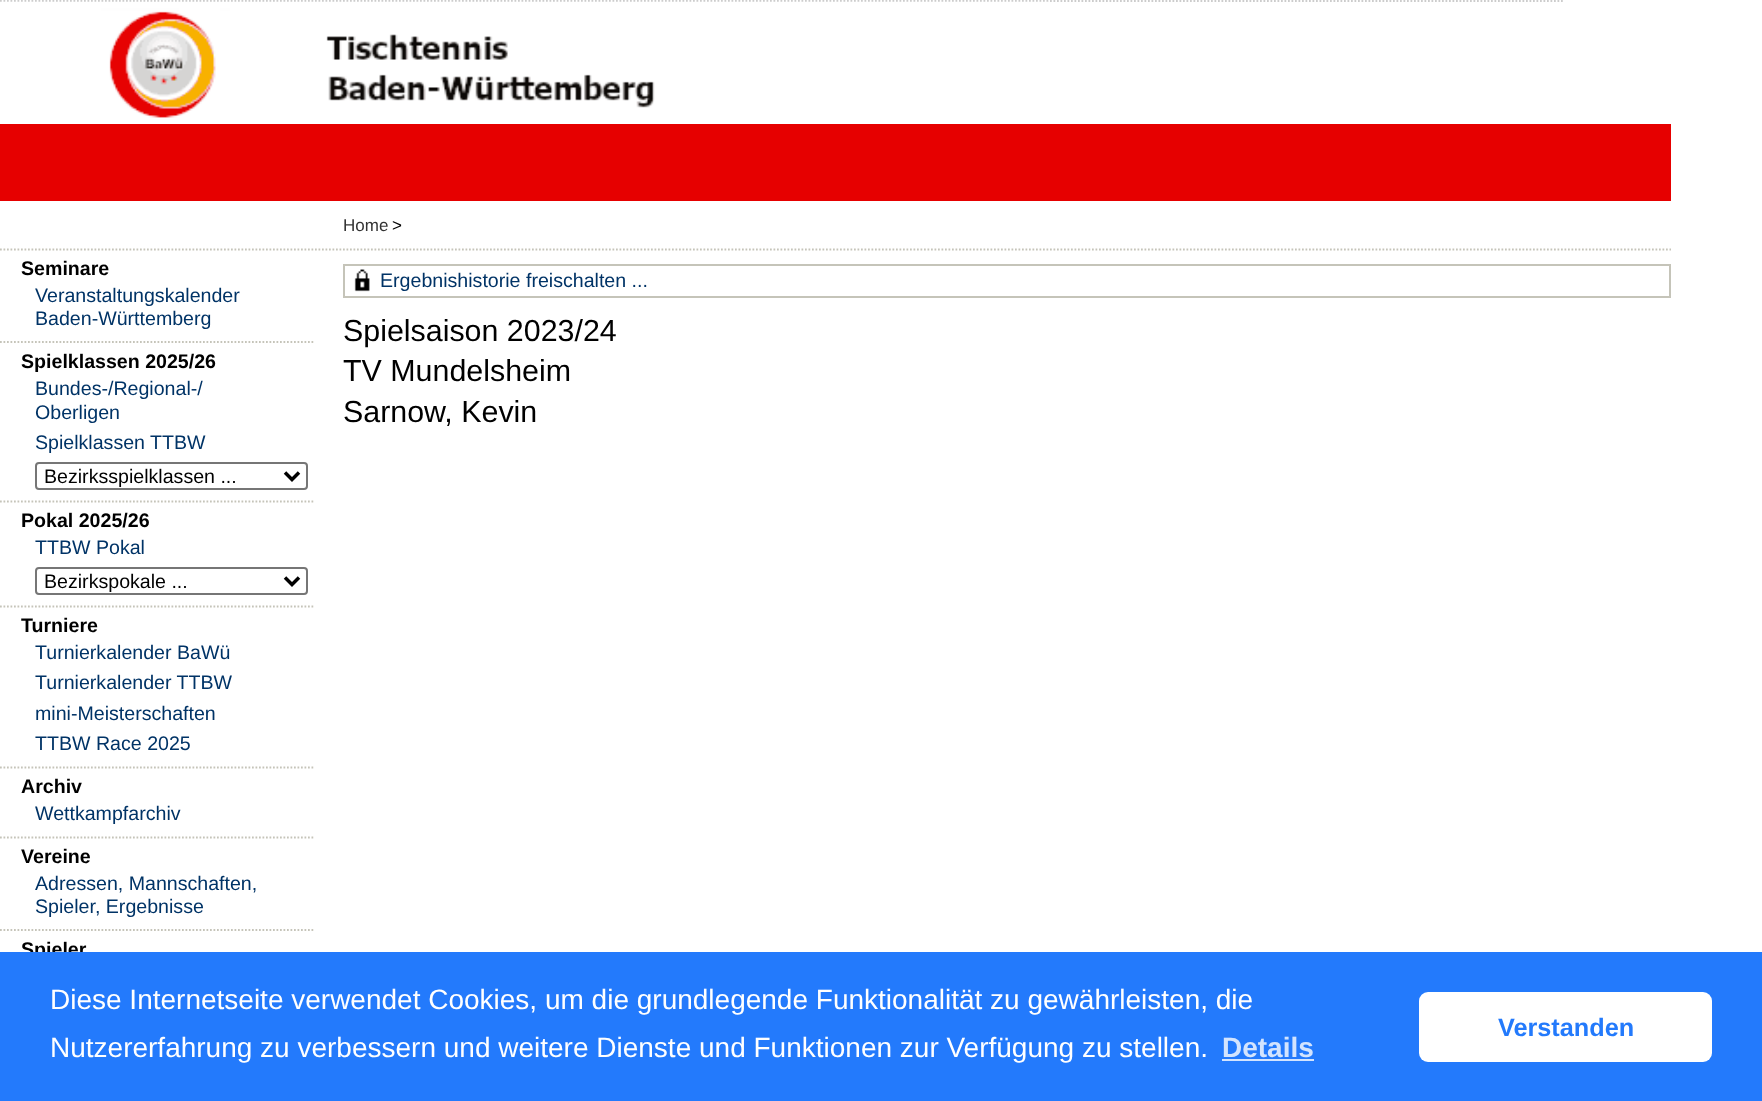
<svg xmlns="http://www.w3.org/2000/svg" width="1762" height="1101">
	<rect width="100%" height="100%" fill="#FFFFFF" />
	<path d="M0 1H1563" fill="none" stroke="#CCCCCC" stroke-width="1.8" stroke-dasharray="1.75 1.75" />
	<image x="0" y="1" width="1048" height="117" href="assets/img1.png" />
	<rect x="0" y="124" width="1671" height="77" fill="#E60000" />
	<path d="M0 249.5H1671" fill="none" stroke="#C5C4B9" stroke-width="1.8" stroke-dasharray="1.75 1.75" />
	<text x="343" y="231" font-family="Liberation Sans" font-size="17" fill="#333333">Home</text>
	<text x="392" y="231" font-family="Liberation Sans" font-size="17" fill="#000000">&gt;</text>
	<path d="M0 342H315" fill="none" stroke="#C5C4B9" stroke-width="1.8" stroke-dasharray="1.75 1.75" />
	<text x="21" y="275" font-family="Liberation Sans" font-size="19.6" font-weight="700" fill="#000000">Seminare</text>
	<g font-family="Liberation Sans" font-size="19.6" fill="#003366">
		<text x="35" y="302">Veranstaltungskalender</text>
		<text x="35" y="325">Baden-Württemberg</text>
	</g>
	<path d="M0 501.5H315" fill="none" stroke="#C5C4B9" stroke-width="1.8" stroke-dasharray="1.75 1.75" />
	<text x="21" y="368" font-family="Liberation Sans" font-size="19.6" font-weight="700" fill="#000000">Spielklassen 2025/26</text>
	<g font-family="Liberation Sans" font-size="19.6" fill="#003366">
		<text x="35" y="395">Bundes-/Regional-/</text>
		<text x="35" y="419">Oberligen</text>
		<text x="35" y="449">Spielklassen TTBW</text>
	</g>
	<rect x="36" y="463" width="271" height="26" rx="3" fill="none" stroke="#767676" stroke-width="2" />
	<path d="M285 472.5L292 479.5L299 472.5" fill="none" stroke="#000000" stroke-width="3.5" />
	<text x="44" y="483" font-family="Liberation Sans" font-size="19.6" fill="#000000">Bezirksspielklassen ...</text>
	<path d="M0 606.5H315" fill="none" stroke="#C5C4B9" stroke-width="1.8" stroke-dasharray="1.75 1.75" />
	<text x="21" y="527" font-family="Liberation Sans" font-size="19.6" font-weight="700" fill="#000000">Pokal 2025/26</text>
	<text x="35" y="554" font-family="Liberation Sans" font-size="19.6" fill="#003366">TTBW Pokal</text>
	<rect x="36" y="568" width="271" height="26" rx="3" fill="none" stroke="#767676" stroke-width="2" />
	<path d="M285 577.5L292 584.5L299 577.5" fill="none" stroke="#000000" stroke-width="3.5" />
	<text x="44" y="588" font-family="Liberation Sans" font-size="19.6" fill="#000000">Bezirkspokale ...</text>
	<path d="M0 767.5H315" fill="none" stroke="#C5C4B9" stroke-width="1.8" stroke-dasharray="1.75 1.75" />
	<text x="21" y="632" font-family="Liberation Sans" font-size="19.6" font-weight="700" fill="#000000">Turniere</text>
	<g font-family="Liberation Sans" font-size="19.6" fill="#003366">
		<text x="35" y="659">Turnierkalender BaWü</text>
		<text x="35" y="689">Turnierkalender TTBW</text>
		<text x="35" y="720">mini-Meisterschaften</text>
		<text x="35" y="750">TTBW Race 2025</text>
	</g>
	<path d="M0 837.5H315" fill="none" stroke="#C5C4B9" stroke-width="1.8" stroke-dasharray="1.75 1.75" />
	<text x="21" y="793" font-family="Liberation Sans" font-size="19.6" font-weight="700" fill="#000000">Archiv</text>
	<text x="35" y="820" font-family="Liberation Sans" font-size="19.6" fill="#003366">Wettkampfarchiv</text>
	<path d="M0 930H315" fill="none" stroke="#C5C4B9" stroke-width="1.8" stroke-dasharray="1.75 1.75" />
	<text x="21" y="863" font-family="Liberation Sans" font-size="19.6" font-weight="700" fill="#000000">Vereine</text>
	<g font-family="Liberation Sans" font-size="19.6" fill="#003366">
		<text x="35" y="890">Adressen, Mannschaften,</text>
		<text x="35" y="913">Spieler, Ergebnisse</text>
	</g>
	<text x="21" y="956" font-family="Liberation Sans" font-size="19.6" font-weight="700" fill="#000000">Spieler</text>
	<rect x="344" y="265" width="1326" height="32" fill="none" stroke="#C5C4B9" stroke-width="2" />
	<image x="354" y="269" width="16" height="23" href="assets/img2.png" />
	<text x="380" y="287" font-family="Liberation Sans" font-size="19.6" fill="#003366">Ergebnishistorie freischalten ...</text>
	<g font-family="Liberation Sans" font-size="30.4" fill="#000000">
		<text x="343" y="341">Spielsaison 2023/24</text>
		<text x="343" y="381">TV Mundelsheim</text>
		<text x="343" y="422">Sarnow, Kevin</text>
	</g>
	<rect x="0" y="952" width="1762" height="149" fill="#237AFC" />
	<g font-family="Liberation Sans" font-size="28" fill="#FFFFFF">
		<text x="50" y="1009">Diese Internetseite verwendet Cookies, um die grundlegende Funktionalität zu gewährleisten, die</text>
		<text x="50" y="1057">Nutzererfahrung zu verbessern und weitere Dienste und Funktionen zur Verfügung zu stellen.</text>
	</g>
	<text x="1222" y="1057" font-family="Liberation Sans" font-size="28" font-weight="700" fill="#D3E4FE">Details</text>
	<rect x="1222" y="1059" width="92" height="2" fill="#D3E4FE" />
	<rect x="1419" y="992" width="293" height="70" rx="9" fill="#FFFFFF" />
	<text x="1498" y="1036" font-family="Liberation Sans" font-size="25.25" font-weight="700" fill="#237AFC">Verstanden</text>
</svg>
